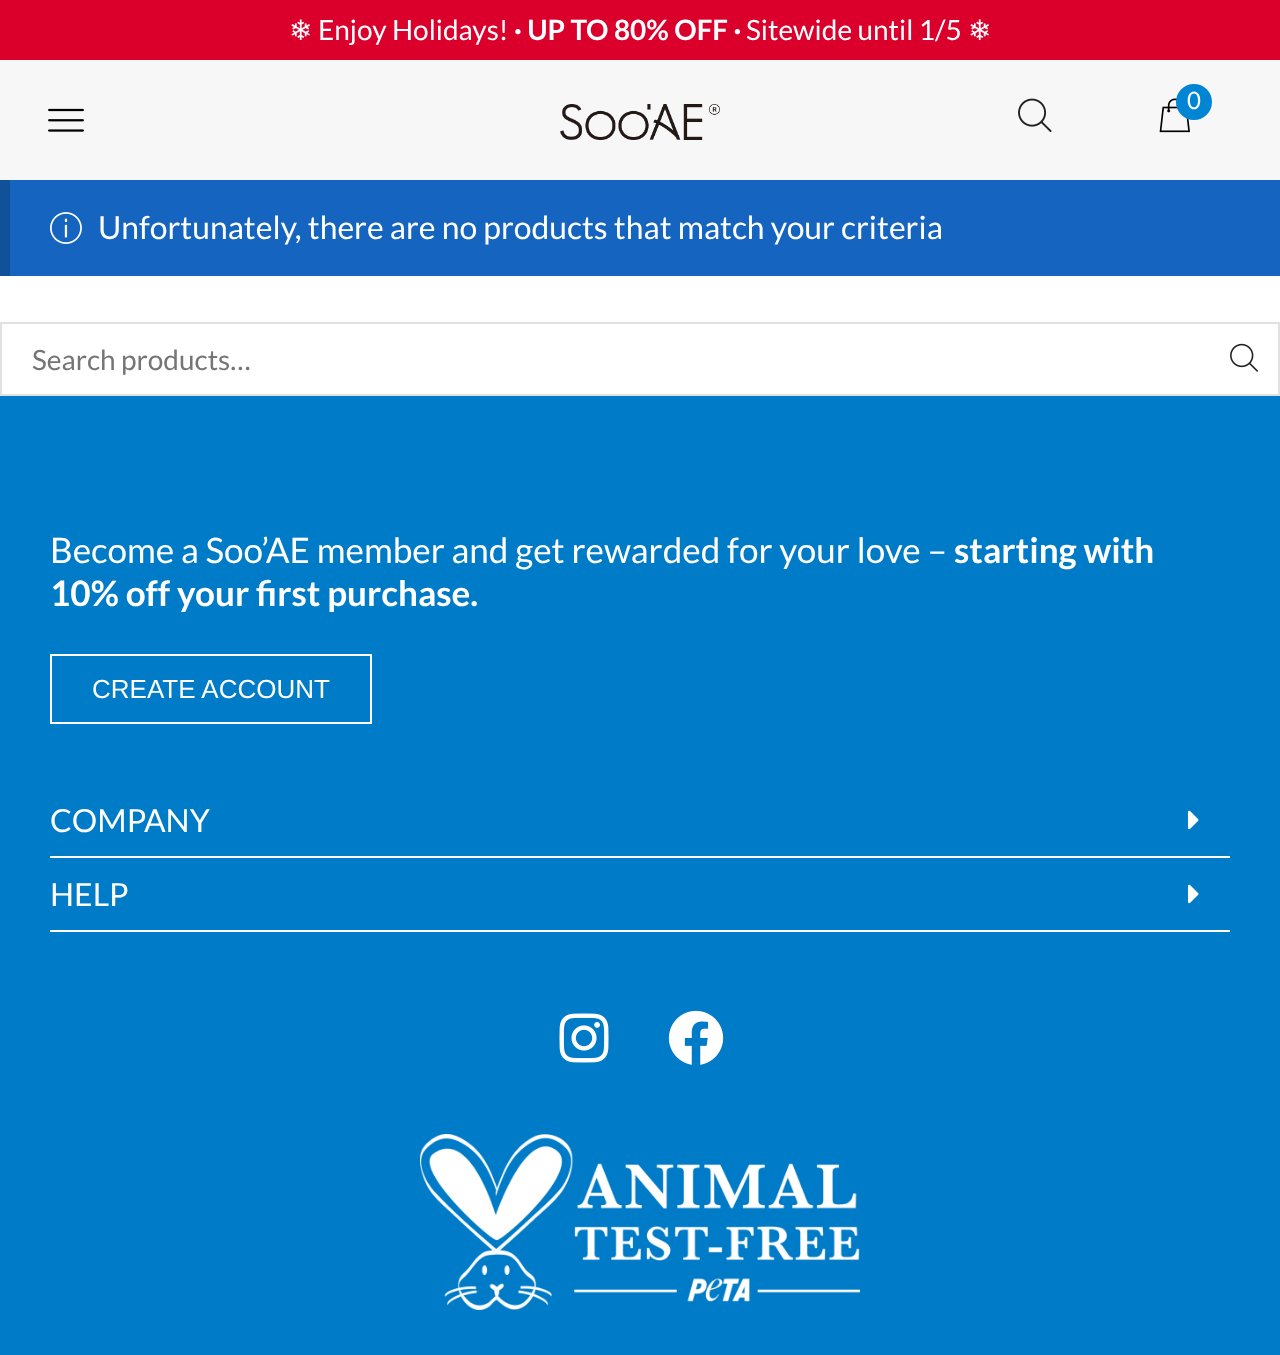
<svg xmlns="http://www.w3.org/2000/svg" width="1280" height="1355">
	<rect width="100%" height="100%" fill="#FFFFFF" />
	<rect x="0" y="0" width="1280" height="60" fill="#DB002B" />
	<text x="289" y="40" font-family="DejaVu Sans" font-size="28" fill="#FFFFFF">❄</text>
	<text x="318" y="40" font-family="Lato" font-size="28" fill="#FFFFFF">Enjoy Holidays!</text>
	<text x="514" y="40" font-family="Lato" font-size="28" font-weight="700" fill="#FFFFFF">· UP TO 80% OFF ·</text>
	<text x="746" y="40" font-family="Lato" font-size="28" fill="#FFFFFF">Sitewide until 1/5</text>
	<text x="968" y="40" font-family="DejaVu Sans" font-size="28" fill="#FFFFFF">❄</text>
	<rect x="0" y="60" width="1280" height="120" fill="#F7F7F7" />
	<image x="1018" y="98" width="34" height="34" href="assets/img1.png" />
	<image x="1159" y="98" width="31" height="35" href="assets/img2.png" />
	<circle cx="1194" cy="102" r="18" fill="#0084D4" />
	<text x="1187" y="109" font-family="Lato" font-size="24" fill="#FFFFFF">0</text>
	<image x="48" y="108" width="36" height="24" href="assets/img3.png" />
	<image x="560" y="104" width="160" height="36" href="assets/img4.png" />
	<rect x="10" y="180" width="1270" height="96" fill="#1565C0" />
	<rect x="0" y="180" width="10" height="96" fill="#11519A" />
	<image x="50" y="212" width="32" height="32" href="assets/img5.png" />
	<text x="98" y="239" font-family="Lato" font-size="31.9" fill="#FFFFFF">Unfortunately, there are no products that match your criteria</text>
	<rect x="1" y="323" width="1278" height="72" fill="none" stroke="#E1E1E1" stroke-width="2" />
	<text x="32" y="370" font-family="Lato" font-size="28" fill="#757575">Search products…</text>
	<image x="1230" y="343" width="28" height="29" href="assets/img6.png" />
	<rect x="0" y="396" width="1280" height="959" fill="#007BC7" />
	<text x="50" y="563" font-family="Lato" font-size="35.1" fill="#FFFFFF">Become a Soo’AE member and get rewarded for your love –</text>
	<g font-family="Lato" font-size="35.1" font-weight="700" fill="#FFFFFF">
		<text x="954" y="563">starting with</text>
		<text x="50" y="606">10% off your first purchase.</text>
	</g>
	<rect x="51" y="655" width="320" height="68" fill="none" stroke="#FFFFFF" stroke-width="2" />
	<text x="92" y="698" font-family="Liberation Sans" font-size="26" fill="#FFFFFF">CREATE ACCOUNT</text>
	<rect x="50" y="856" width="1180" height="2" fill="#FFFFFF" />
	<text x="50" y="832" font-family="Lato" font-size="31.9" fill="#FFFFFF">COMPANY</text>
	<image x="1187" y="810" width="12" height="20" href="assets/img7.png" />
	<rect x="50" y="930" width="1180" height="2" fill="#FFFFFF" />
	<text x="50" y="906" font-family="Lato" font-size="31.9" fill="#FFFFFF">HELP</text>
	<image x="1187" y="884" width="12" height="20" href="assets/img7.png" />
	<image x="559" y="1013" width="50" height="50" href="assets/img8.png" />
	<image x="668" y="1010" width="56" height="55" href="assets/img9.png" />
	<image x="420" y="1134" width="440" height="176" href="assets/img10.png" />
</svg>
